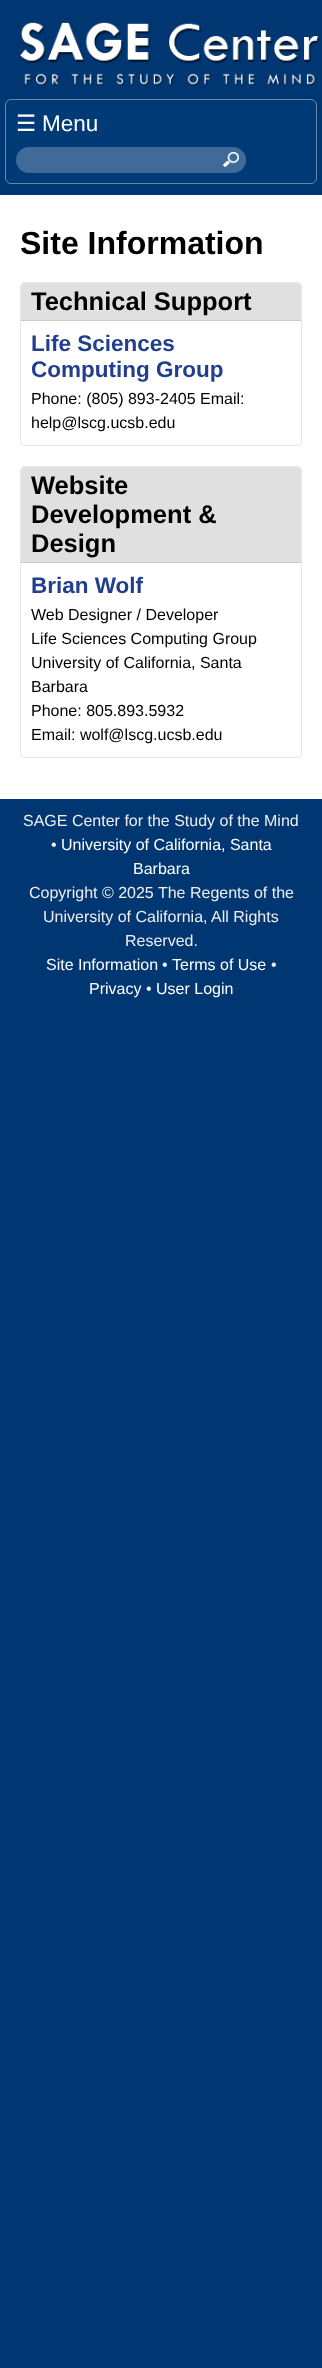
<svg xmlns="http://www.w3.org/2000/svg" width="322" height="2368">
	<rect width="100%" height="100%" fill="#003772" />
	<image x="20" y="22" width="300" height="64" href="assets/img1.png" />
	<rect x="5.5" y="99.5" width="311" height="84" rx="5.5" fill="#003A77" stroke="#6689AD" />
	<text x="16" y="131" font-family="DejaVu Sans" font-size="22.5" fill="#FFFFFF">☰</text>
	<text x="42" y="131" font-family="Liberation Sans" font-size="22.5" fill="#FFFFFF">Menu</text>
	<rect x="16" y="147" width="230" height="26" rx="13" fill="#406B99" />
	<image x="223" y="152" width="16" height="15" href="assets/img2.png" />
	<rect x="0" y="195" width="322" height="604" fill="#FFFFFF" />
	<text x="20" y="254" font-family="Liberation Sans" font-size="32" font-weight="700" fill="#000000">Site Information</text>
	<rect x="20.5" y="282.5" width="281" height="163" rx="3.5" fill="none" stroke="#E6E6E6" />
	<path d="M25 283H297C299 283 301 285 301 287V321H21V287C21 285 23 283 25 283Z" fill="#000000" fill-opacity="0.12" />
	<rect x="21" y="320" width="280" height="1" fill="#CACACA" />
	<text x="31" y="310" font-family="Liberation Sans" font-size="25.5" font-weight="700" fill="#000000">Technical Support</text>
	<g font-family="Liberation Sans" font-size="22.5" font-weight="700" fill="#213F8D">
		<text x="31" y="351">Life Sciences</text>
		<text x="31" y="377">Computing Group</text>
	</g>
	<g font-family="Liberation Sans" font-size="16" fill="#000000">
		<text x="31" y="404">Phone: (805) 893-2405 Email:</text>
		<text x="31" y="428">help@lscg.ucsb.edu</text>
	</g>
	<rect x="20.5" y="466.5" width="281" height="291" rx="3.5" fill="none" stroke="#E6E6E6" />
	<path d="M25 467H297C299 467 301 469 301 471V563H21V471C21 469 23 467 25 467Z" fill="#000000" fill-opacity="0.12" />
	<rect x="21" y="562" width="280" height="1" fill="#CACACA" />
	<g font-family="Liberation Sans" font-size="25.5" font-weight="700" fill="#000000">
		<text x="31" y="494">Website</text>
		<text x="31" y="523">Development &amp;</text>
		<text x="31" y="552">Design</text>
	</g>
	<text x="31" y="593" font-family="Liberation Sans" font-size="22.5" font-weight="700" fill="#213F8D">Brian Wolf</text>
	<g font-family="Liberation Sans" font-size="16" fill="#000000">
		<text x="31" y="620">Web Designer / Developer</text>
		<text x="31" y="644">Life Sciences Computing Group</text>
		<text x="31" y="668">University of California, Santa</text>
		<text x="31" y="692">Barbara</text>
		<text x="31" y="716">Phone: 805.893.5932</text>
		<text x="31" y="740">Email: wolf@lscg.ucsb.edu</text>
	</g>
	<g font-family="Liberation Sans" font-size="16" fill="#EEEEEE">
		<text x="23" y="826">SAGE Center for the Study of the Mind</text>
		<text x="51" y="850">•</text>
	</g>
	<g font-family="Liberation Sans" font-size="16" fill="#FFFFFF">
		<text x="61" y="850">University of California, Santa</text>
		<text x="133" y="874">Barbara</text>
	</g>
	<g font-family="Liberation Sans" font-size="16" fill="#EEEEEE">
		<text x="29" y="898">Copyright © 2025 The Regents of the</text>
		<text x="43" y="922">University of California, All Rights</text>
		<text x="125" y="946">Reserved.</text>
	</g>
	<text x="46" y="970" font-family="Liberation Sans" font-size="16" fill="#FFFFFF">Site Information</text>
	<text x="162" y="970" font-family="Liberation Sans" font-size="16" fill="#EEEEEE">•</text>
	<text x="172" y="970" font-family="Liberation Sans" font-size="16" fill="#FFFFFF">Terms of Use</text>
	<text x="271" y="970" font-family="Liberation Sans" font-size="16" fill="#EEEEEE">•</text>
	<text x="89" y="994" font-family="Liberation Sans" font-size="16" fill="#FFFFFF">Privacy</text>
	<text x="146" y="994" font-family="Liberation Sans" font-size="16" fill="#EEEEEE">•</text>
	<text x="156" y="994" font-family="Liberation Sans" font-size="16" fill="#FFFFFF">User Login</text>
</svg>
